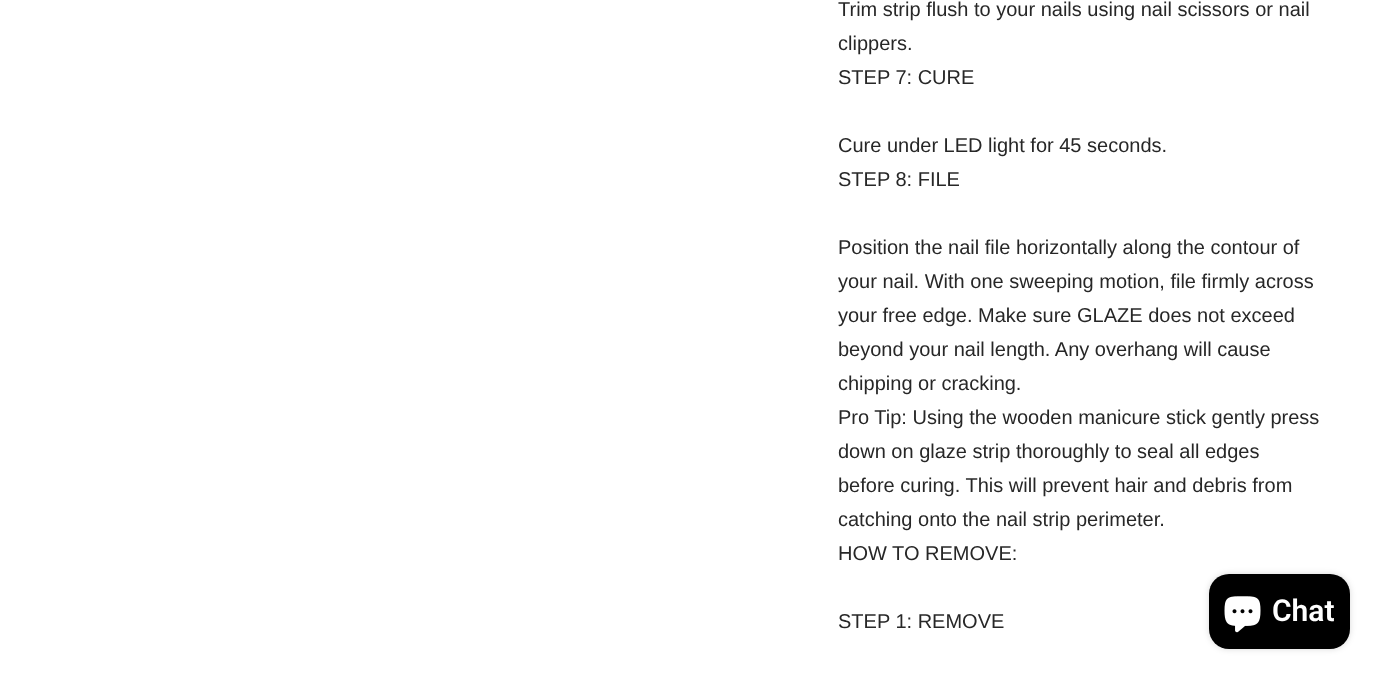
<svg xmlns="http://www.w3.org/2000/svg" width="1377" height="674">
	<rect width="100%" height="100%" fill="#FFFFFF" />
	<g font-family="Liberation Sans" font-size="20" fill="#272727">
		<text x="838" y="16">Trim strip flush to your nails using nail scissors or nail</text>
		<text x="838" y="50">clippers.</text>
		<text x="838" y="84">STEP 7: CURE</text>
		<text x="838" y="152">Cure under LED light for 45 seconds.</text>
		<text x="838" y="186">STEP 8: FILE</text>
		<text x="838" y="254">Position the nail file horizontally along the contour of</text>
		<text x="838" y="288">your nail. With one sweeping motion, file firmly across</text>
		<text x="838" y="322">your free edge. Make sure GLAZE does not exceed</text>
		<text x="838" y="356">beyond your nail length. Any overhang will cause</text>
		<text x="838" y="390">chipping or cracking.</text>
		<text x="838" y="424">Pro Tip: Using the wooden manicure stick gently press</text>
		<text x="838" y="458">down on glaze strip thoroughly to seal all edges</text>
		<text x="838" y="492">before curing. This will prevent hair and debris from</text>
		<text x="838" y="526">catching onto the nail strip perimeter.</text>
		<text x="838" y="560">HOW TO REMOVE:</text>
		<text x="838" y="628">STEP 1: REMOVE</text>
	</g>
	<rect x="1209" y="574" width="141" height="75" rx="20" fill="#000000" fill-opacity="0.15" filter="blur(3px)" />
	<rect x="1209" y="574" width="141" height="75" rx="20" fill="#000000" />
	<image x="1224" y="596" width="37" height="37" href="assets/img1.png" />
	<text x="1272" y="621" font-family="Roboto" font-size="30" font-weight="600" fill="#FFFFFF">Chat</text>
</svg>
